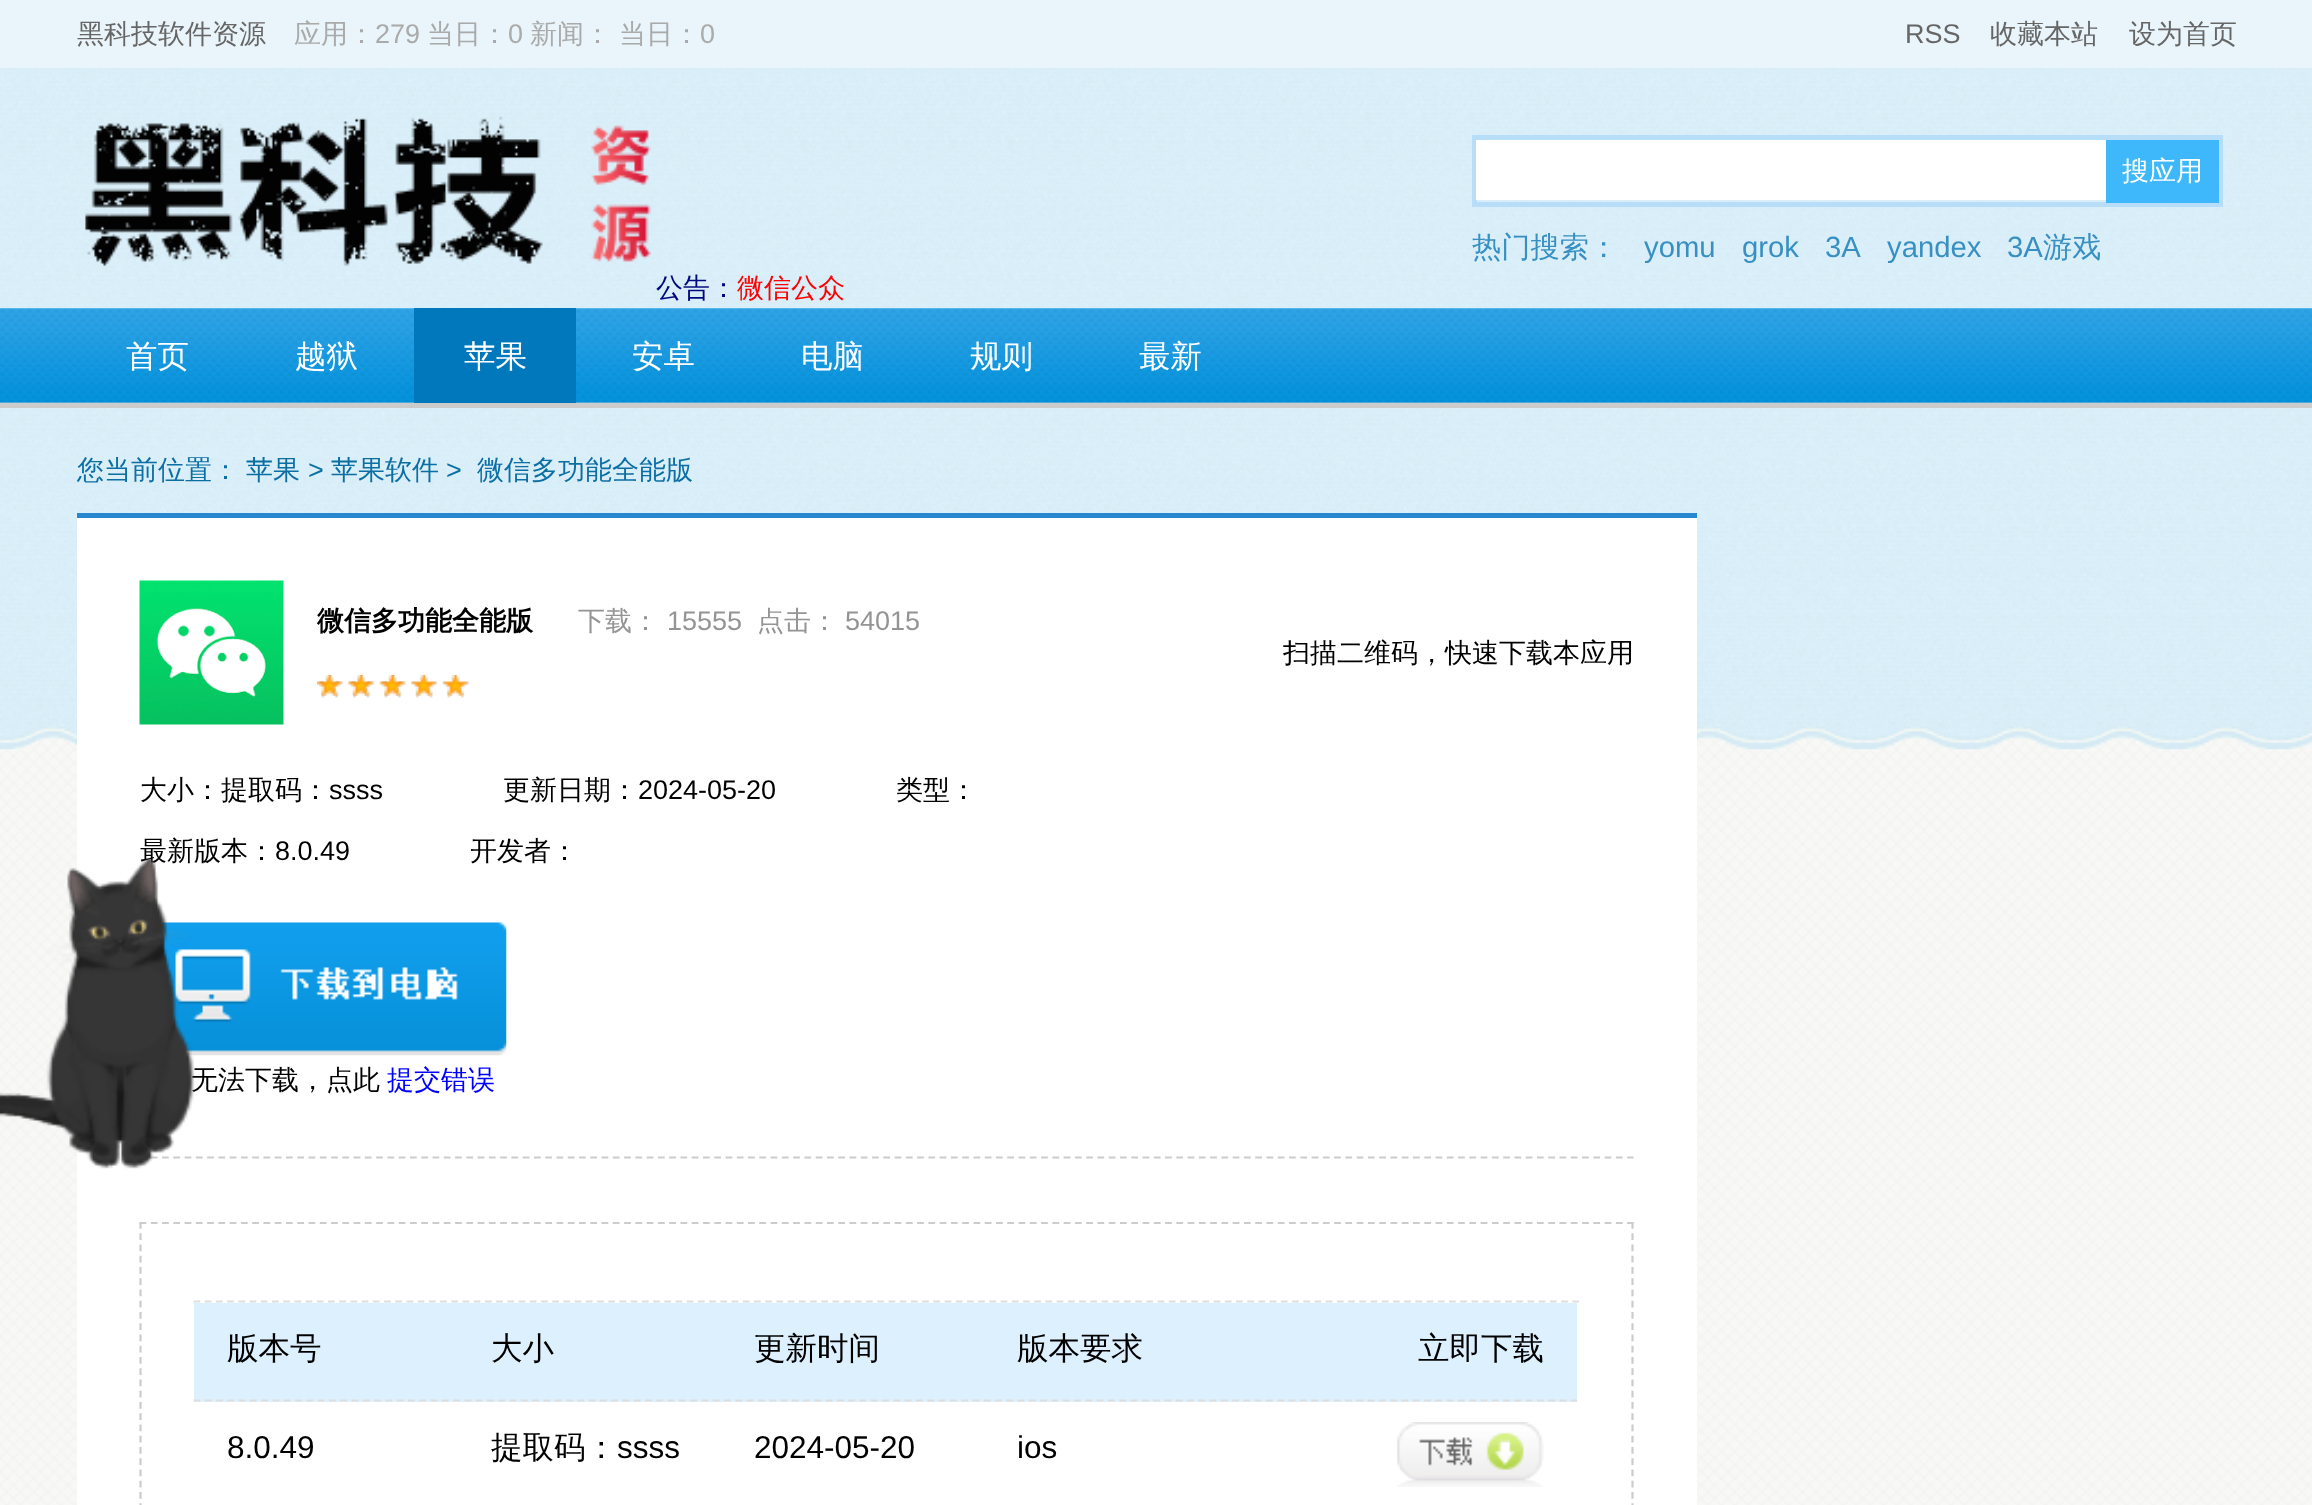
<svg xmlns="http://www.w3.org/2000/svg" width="2312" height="1505">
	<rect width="100%" height="100%" fill="#FFFFFF" />
	<image x="0" y="728" width="2312" height="777" href="assets/img1.png" />
	<image x="0" y="68" width="2312" height="682" href="assets/img2.png" />
	<rect x="0" y="0" width="2312" height="68" fill="#E9F5FB" />
	<text x="77" y="43" font-family="WenQuanYi Zen Hei" font-size="27" font-weight="500" fill="#666666">黑科技软件资源</text>
	<text x="294" y="43" font-family="WenQuanYi Zen Hei" font-size="27" font-weight="500" fill="#AAAAAA">应用：</text>
	<text x="375" y="43" font-family="Liberation Sans" font-size="27" fill="#AAAAAA">279</text>
	<text x="427" y="43" font-family="WenQuanYi Zen Hei" font-size="27" font-weight="500" fill="#AAAAAA">当日：</text>
	<text x="508" y="43" font-family="Liberation Sans" font-size="27" fill="#AAAAAA">0</text>
	<text x="530" y="43" font-family="WenQuanYi Zen Hei" font-size="27" font-weight="500" fill="#AAAAAA">新闻： 当日：</text>
	<text x="700" y="43" font-family="Liberation Sans" font-size="27" fill="#AAAAAA">0</text>
	<text x="1905" y="43" font-family="Liberation Sans" font-size="27" fill="#666666">RSS</text>
	<g font-family="WenQuanYi Zen Hei" font-size="27" font-weight="500" fill="#666666">
		<text x="1990" y="43">收藏本站</text>
		<text x="2129" y="43">设为首页</text>
	</g>
	<image x="85" y="116" width="566" height="151" href="assets/img3.png" />
	<rect x="1474.5" y="137.5" width="746" height="67" fill="none" stroke="#B8DDF8" stroke-width="5" />
	<rect x="1476" y="140" width="630" height="60" fill="#FFFFFF" />
	<rect x="2106" y="140" width="113" height="63" fill="#3EB8FA" />
	<text x="2122" y="180" font-family="WenQuanYi Zen Hei" font-size="27" font-weight="500" fill="#FFFFFF">搜应用</text>
	<text x="1472" y="257" font-family="WenQuanYi Zen Hei" font-size="29.25" font-weight="500" fill="#3890C2">热门搜索：</text>
	<g font-family="Liberation Sans" font-size="29.25" fill="#3890C2">
		<text x="1644" y="257">yomu</text>
		<text x="1742" y="257">grok</text>
		<text x="1825" y="257">3A</text>
		<text x="1887" y="257">yandex</text>
		<text x="2007" y="257">3A</text>
	</g>
	<text x="2043" y="257" font-family="WenQuanYi Zen Hei" font-size="29.25" font-weight="500" fill="#3890C2">游戏</text>
	<text x="656" y="297" font-family="WenQuanYi Zen Hei" font-size="27" font-weight="500" fill="#000880">公告：</text>
	<text x="737" y="297" font-family="WenQuanYi Zen Hei" font-size="27" font-weight="500" fill="#FF0000">微信公众</text>
	<image x="0" y="308" width="2312" height="95" href="assets/img4.png" />
	<rect x="0" y="403" width="2312" height="5" fill="#CCCCCC" />
	<g font-family="WenQuanYi Zen Hei" font-size="31.5" font-weight="500" fill="#FFFFFF">
		<text x="126" y="367">首页</text>
		<text x="295" y="367">越狱</text>
	</g>
	<rect x="414" y="308" width="162" height="95" fill="#0078BB" />
	<g font-family="WenQuanYi Zen Hei" font-size="31.5" font-weight="500" fill="#FFFFFF">
		<text x="464" y="367">苹果</text>
		<text x="632" y="367">安卓</text>
		<text x="801" y="367">电脑</text>
		<text x="970" y="367">规则</text>
		<text x="1139" y="367">最新</text>
	</g>
	<g font-family="WenQuanYi Zen Hei" font-size="27" font-weight="500" fill="#0C6FA4">
		<text x="77" y="479">您当前位置：</text>
		<text x="246" y="479">苹果</text>
	</g>
	<text x="308" y="479" font-family="Liberation Sans" font-size="27" fill="#0C6FA4">&gt;</text>
	<text x="331" y="479" font-family="WenQuanYi Zen Hei" font-size="27" font-weight="500" fill="#0C6FA4">苹果软件</text>
	<text x="446" y="479" font-family="Liberation Sans" font-size="27" fill="#0C6FA4">&gt;</text>
	<text x="477" y="479" font-family="WenQuanYi Zen Hei" font-size="27" font-weight="500" fill="#0C6FA4">微信多功能全能版</text>
	<rect x="77" y="518" width="1620" height="987" fill="#FFFFFF" />
	<rect x="77" y="513" width="1620" height="5" fill="#2788CF" />
	<image x="139" y="580" width="145" height="145" href="assets/img5.png" />
	<text x="317" y="630" font-family="WenQuanYi Zen Hei" font-size="27" font-weight="700" fill="#000000">微信多功能全能版</text>
	<text x="578" y="630" font-family="WenQuanYi Zen Hei" font-size="27" font-weight="500" fill="#949494">下载：</text>
	<text x="667" y="630" font-family="Liberation Sans" font-size="27" fill="#949494">15555</text>
	<text x="757" y="630" font-family="WenQuanYi Zen Hei" font-size="27" font-weight="500" fill="#949494">点击：</text>
	<text x="845" y="630" font-family="Liberation Sans" font-size="27" fill="#949494">54015</text>
	<image x="317" y="675" width="152" height="23" href="assets/img6.png" />
	<image x="317" y="675" width="152" height="23" href="assets/img7.png" />
	<text x="140" y="799" font-family="WenQuanYi Zen Hei" font-size="27" font-weight="500" fill="#000000">大小：提取码：</text>
	<text x="329" y="799" font-family="Liberation Sans" font-size="27" fill="#000000">ssss</text>
	<text x="503" y="799" font-family="WenQuanYi Zen Hei" font-size="27" font-weight="500" fill="#000000">更新日期：</text>
	<text x="638" y="799" font-family="Liberation Sans" font-size="27" fill="#000000">2024-05-20</text>
	<g font-family="WenQuanYi Zen Hei" font-size="27" font-weight="500" fill="#000000">
		<text x="896" y="799">类型：</text>
		<text x="140" y="860">最新版本：</text>
	</g>
	<text x="275" y="860" font-family="Liberation Sans" font-size="27" fill="#000000">8.0.49</text>
	<g font-family="WenQuanYi Zen Hei" font-size="27" font-weight="500" fill="#000000">
		<text x="470" y="860">开发者：</text>
		<text x="1283" y="662">扫描二维码，快速下载本应用</text>
	</g>
	<image x="161" y="922" width="346" height="134" href="assets/img8.png" />
	<text x="191" y="1089" font-family="WenQuanYi Zen Hei" font-size="27" font-weight="500" fill="#000000">无法下载，点此</text>
	<text x="387" y="1089" font-family="WenQuanYi Zen Hei" font-size="27" font-weight="500" fill="#0000FF">提交错误</text>
	<path d="M139.5 1157.5H1633.5" fill="none" stroke="#CCCCCC" stroke-width="2.2" stroke-dasharray="6.75 4.52" />
	<path d="M139.5 1223H1633.5" fill="none" stroke="#CCCCCC" stroke-width="2.2" stroke-dasharray="6.75 4.52" />
	<path d="M1632.5 1222V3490" fill="none" stroke="#CCCCCC" stroke-width="2.2" stroke-dasharray="6.75 4.5" />
	<path d="M140.5 1222V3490" fill="none" stroke="#CCCCCC" stroke-width="2.2" stroke-dasharray="6.75 4.5" />
	<path d="M193.5 1301.5H1579.5" fill="none" stroke="#DDDDDD" stroke-width="2.2" stroke-dasharray="6.75 4.46" />
	<rect x="194" y="1303" width="1383" height="99" fill="#DDF0FD" />
	<path d="M193.5 1400.5H1577" fill="none" stroke="#DDDDDD" stroke-width="2.2" stroke-dasharray="6.75 4.54" />
	<g font-family="WenQuanYi Zen Hei" font-size="31.5" font-weight="500" fill="#000000">
		<text x="227" y="1359">版本号</text>
		<text x="491" y="1359">大小</text>
		<text x="754" y="1359">更新时间</text>
		<text x="1017" y="1359">版本要求</text>
		<text x="1418" y="1359">立即下载</text>
	</g>
	<text x="227" y="1458" font-family="Liberation Sans" font-size="31.5" fill="#000000">8.0.49</text>
	<text x="491" y="1458" font-family="WenQuanYi Zen Hei" font-size="31.5" font-weight="500" fill="#000000">提取码：</text>
	<g font-family="Liberation Sans" font-size="31.5" fill="#000000">
		<text x="617" y="1458">ssss</text>
		<text x="754" y="1458">2024-05-20</text>
		<text x="1017" y="1458">ios</text>
	</g>
	<image x="1397" y="1422" width="147" height="65" href="assets/img9.png" />
	<image x="0" y="857" width="195" height="312" href="assets/img10.png" />
</svg>
